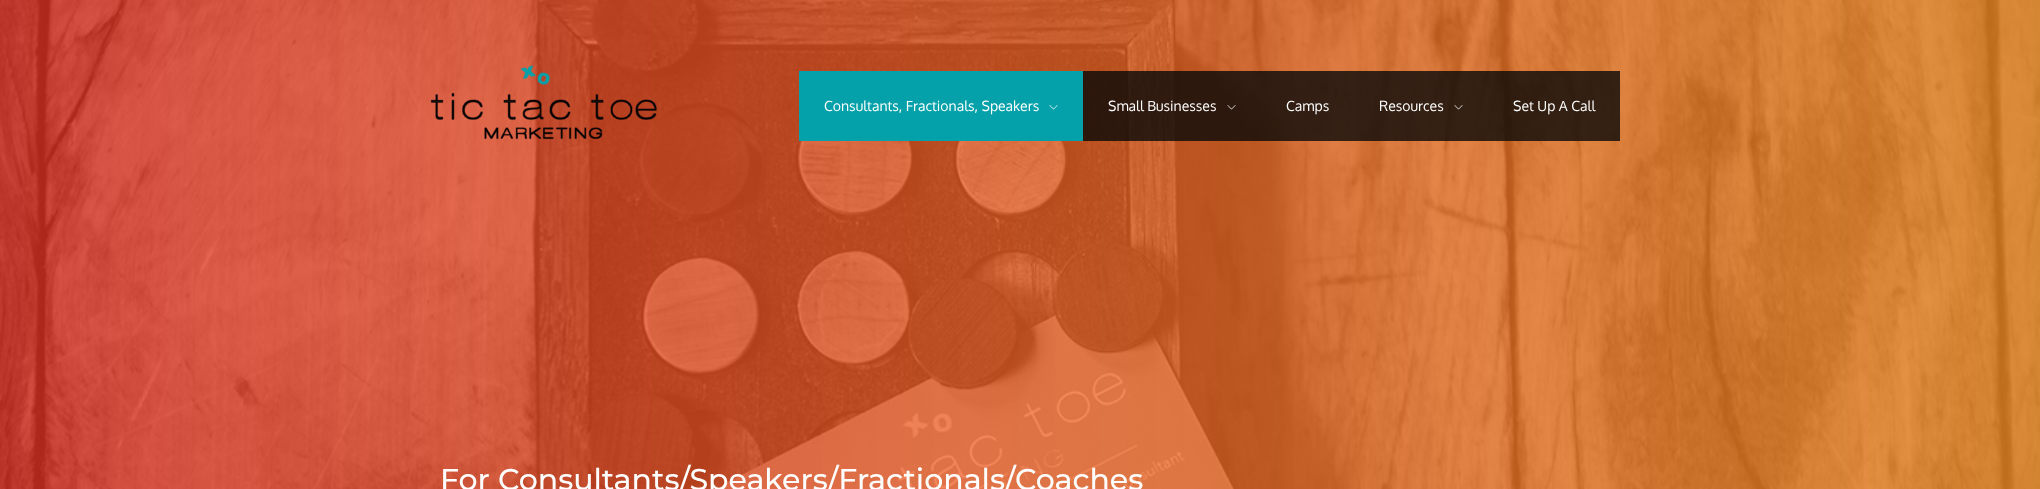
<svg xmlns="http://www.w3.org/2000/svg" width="2040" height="489">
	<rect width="100%" height="100%" fill="#FFFFFF" />
	<image x="0" y="0" width="2040" height="489" href="assets/img5.png" />
	<image x="430" y="65" width="227" height="75" href="assets/img1.png" />
	<rect x="1083" y="71" width="537" height="70" fill="#0A0A0A" fill-opacity="0.55" />
	<rect x="799" y="71" width="284" height="70" fill="#05A1AA" />
	<text x="824" y="111" font-family="Oxygen" font-size="14" fill="#FFFFFF">Consultants, Fractionals, Speakers</text>
	<image x="1049" y="105" width="9" height="5" href="assets/img2.png" />
	<rect x="1083" y="71" width="178" height="70" fill="#0A0A0A" fill-opacity="0.55" />
	<text x="1108" y="111" font-family="Oxygen" font-size="14" fill="#FFFFFF">Small Businesses</text>
	<image x="1227" y="105" width="9" height="5" href="assets/img3.png" />
	<rect x="1261" y="71" width="93" height="70" fill="#0A0A0A" fill-opacity="0.55" />
	<text x="1286" y="111" font-family="Oxygen" font-size="14" fill="#FFFFFF">Camps</text>
	<rect x="1354" y="71" width="134" height="70" fill="#0A0A0A" fill-opacity="0.55" />
	<text x="1379" y="111" font-family="Oxygen" font-size="14" fill="#FFFFFF">Resources</text>
	<image x="1454" y="105" width="9" height="5" href="assets/img4.png" />
	<rect x="1488" y="71" width="132" height="70" fill="#0A0A0A" fill-opacity="0.55" />
	<text x="1513" y="111" font-family="Oxygen" font-size="14" fill="#FFFFFF">Set Up A Call</text>
	<text x="440" y="490" font-family="Montserrat" font-size="30" font-weight="500" fill="#FFFFFF">For Consultants/Speakers/Fractionals/Coaches</text>
</svg>
